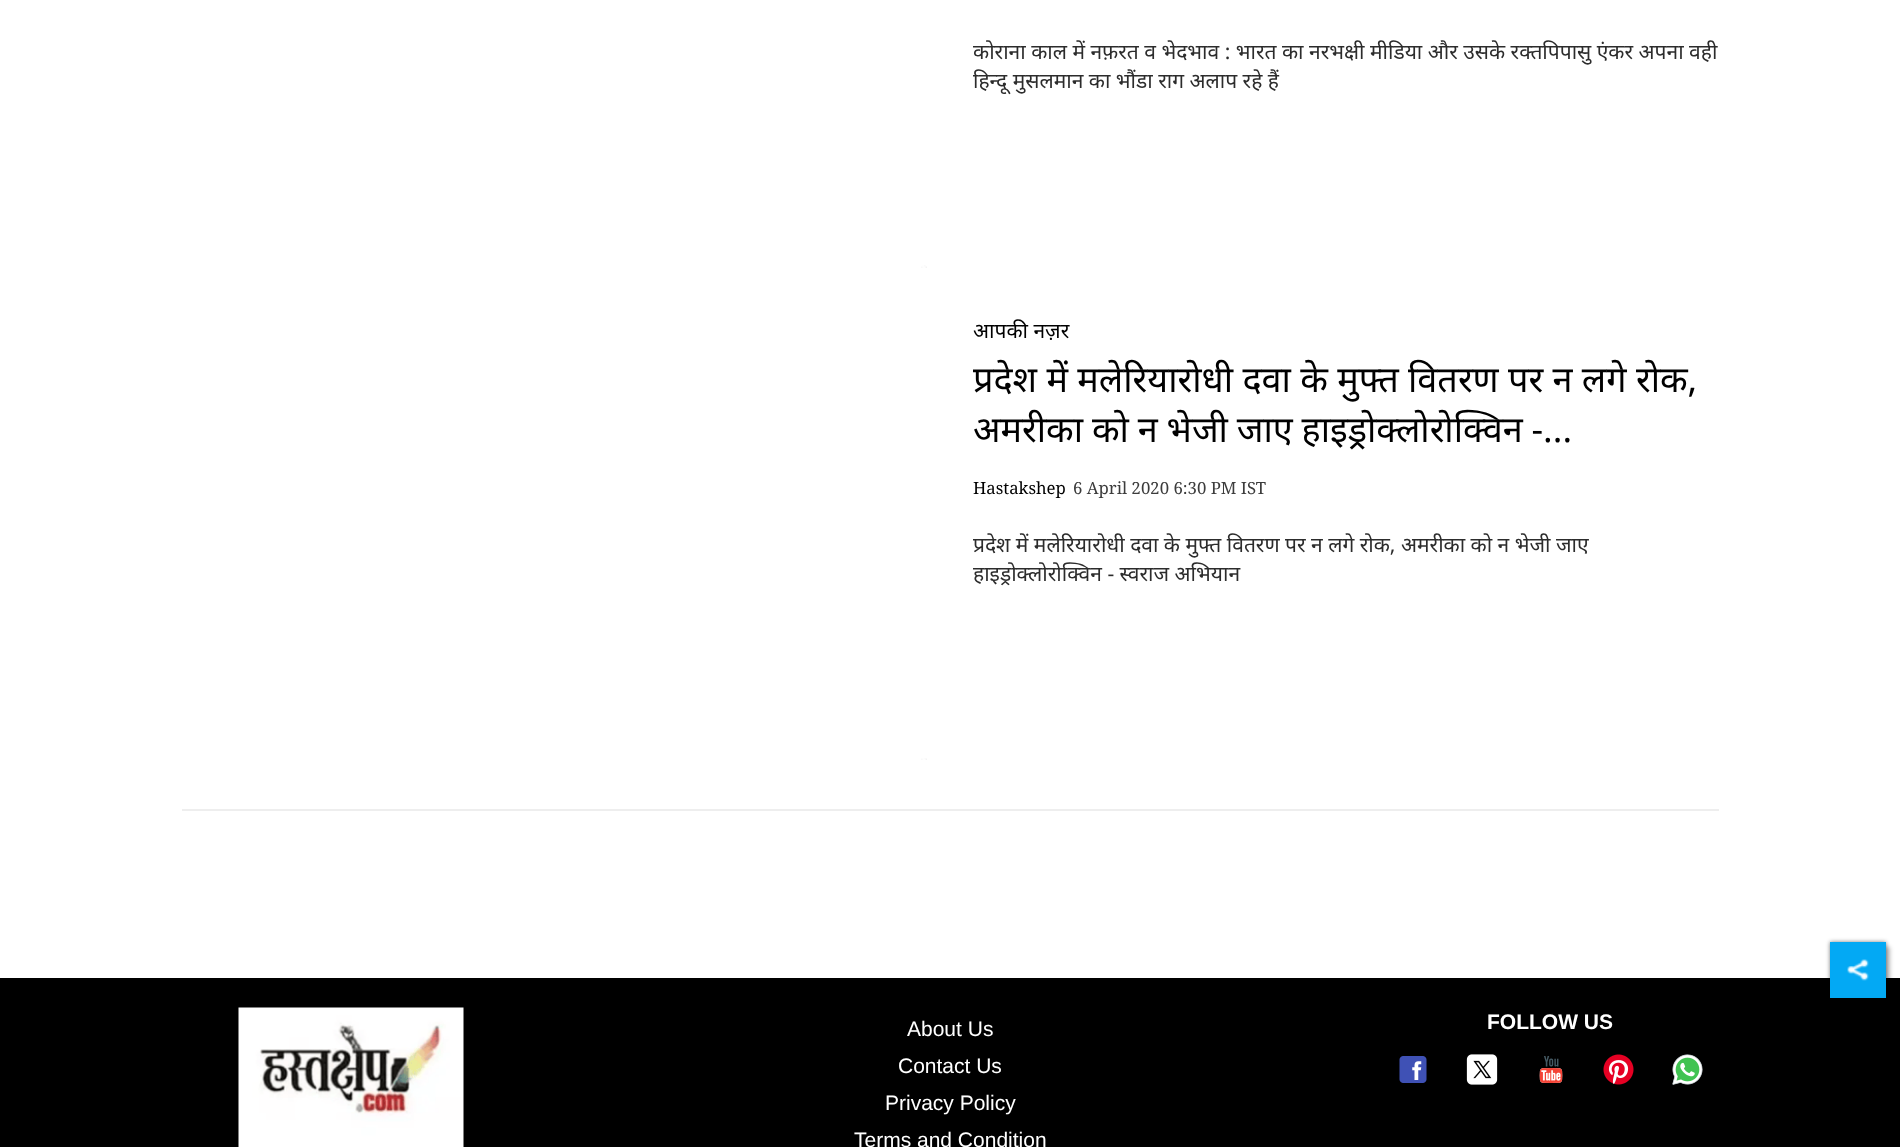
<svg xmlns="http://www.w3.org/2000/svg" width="1900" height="1147">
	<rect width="100%" height="100%" fill="#FFFFFF" />
	<g font-family="Noto Sans" font-size="21" fill="#2C2C2C">
		<text x="973" y="59">कोराना काल में नफ़रत व भेदभाव : भारत का नरभक्षी मीडिया और उसके रक्तपिपासु एंकर अपना वही</text>
		<text x="973" y="88">हिन्दू मुसलमान का भौंडा राग अलाप रहे हैं</text>
	</g>
	<image x="921" y="265" width="6" height="3" href="assets/img1.png" />
	<text x="973" y="338" font-family="Noto Sans" font-size="21" fill="#000000">आपकी नज़र</text>
	<g font-family="Noto Sans" font-size="36" fill="#000000">
		<text x="973" y="392">प्रदेश में मलेरियारोधी दवा के मुफ्त वितरण पर न लगे रोक,</text>
		<text x="973" y="442" word-spacing="-0.5">अमरीका को न भेजी जाए हाइड्रोक्लोरोक्विन -...</text>
	</g>
	<text x="973" y="494" font-family="Noto Serif" font-size="16.75" fill="#000000">Hastakshep</text>
	<text x="1073" y="494" font-family="Noto Serif" font-size="16.75" fill="#3C3C3C">6 April 2020 6:30 PM IST</text>
	<g font-family="Noto Sans" font-size="21" fill="#2C2C2C">
		<text x="973" y="552">प्रदेश में मलेरियारोधी दवा के मुफ्त वितरण पर न लगे रोक, अमरीका को न भेजी जाए</text>
		<text x="973" y="581">हाइड्रोक्लोरोक्विन - स्वराज अभियान</text>
	</g>
	<image x="921" y="758" width="6" height="2" href="assets/img2.png" />
	<rect x="182" y="809" width="1537" height="2" fill="#EEEEEE" />
	<rect x="0" y="978" width="1900" height="169" fill="#000000" />
	<image x="238" y="1007" width="226" height="140" href="assets/img3.png" />
	<g font-family="Liberation Sans" font-size="21" fill="#FFFFFF">
		<text x="907" y="1036">About Us</text>
		<text x="898" y="1073">Contact Us</text>
		<text x="885" y="1110">Privacy Policy</text>
		<text x="854" y="1147">Terms and Condition</text>
	</g>
	<text x="1487" y="1029" font-family="Liberation Sans" font-size="21" font-weight="700" fill="#FFFFFF">FOLLOW US</text>
	<image x="1399" y="1056" width="28" height="27" href="assets/img4.png" />
	<image x="1466" y="1054" width="32" height="31" href="assets/img5.png" />
	<image x="1539" y="1056" width="24" height="27" href="assets/img6.png" />
	<image x="1603" y="1054" width="31" height="31" href="assets/img7.png" />
	<image x="1672" y="1054" width="31" height="31" href="assets/img8.png" />
	<rect x="1835" y="947" width="55" height="55" fill="#000000" fill-opacity="0.25" filter="blur(2px)" />
	<rect x="1830" y="942" width="56" height="56" fill="#000000" fill-opacity="0.5" filter="blur(2px)" />
	<rect x="1830" y="942" width="56" height="56" fill="#03A9F4" />
	<image x="1847" y="959" width="22" height="22" href="assets/img9.png" />
</svg>
